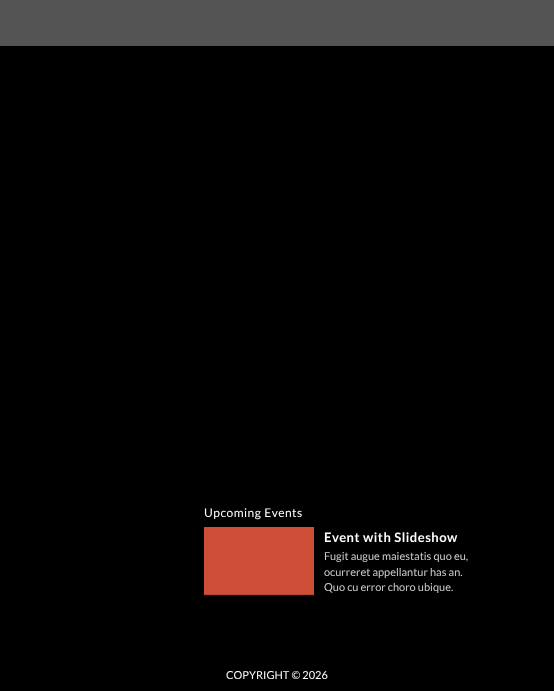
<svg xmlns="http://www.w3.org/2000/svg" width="554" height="691">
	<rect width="100%" height="100%" fill="#000000" />
	<rect x="0" y="0" width="554" height="46" fill="#545454" />
	<text x="204" y="517" font-family="Lato" font-size="12" letter-spacing="0.5" fill="#FFFFFF">Upcoming Events</text>
	<image x="204" y="527" width="110" height="69" href="assets/img1.png" />
	<text x="324" y="542" font-family="Lato" font-size="13" font-weight="700" letter-spacing="0.5" fill="#FFFFFF">Event with Slideshow</text>
	<g font-family="Lato" font-size="11" fill="#CCCCCC">
		<text x="324" y="560">Fugit augue maiestatis quo eu,</text>
		<text x="324" y="576">ocurreret appellantur has an.</text>
		<text x="324" y="591">Quo cu error choro ubique.</text>
	</g>
	<text x="226" y="679" font-family="Lato" font-size="11" fill="#FFFFFF">COPYRIGHT © 2026</text>
</svg>
